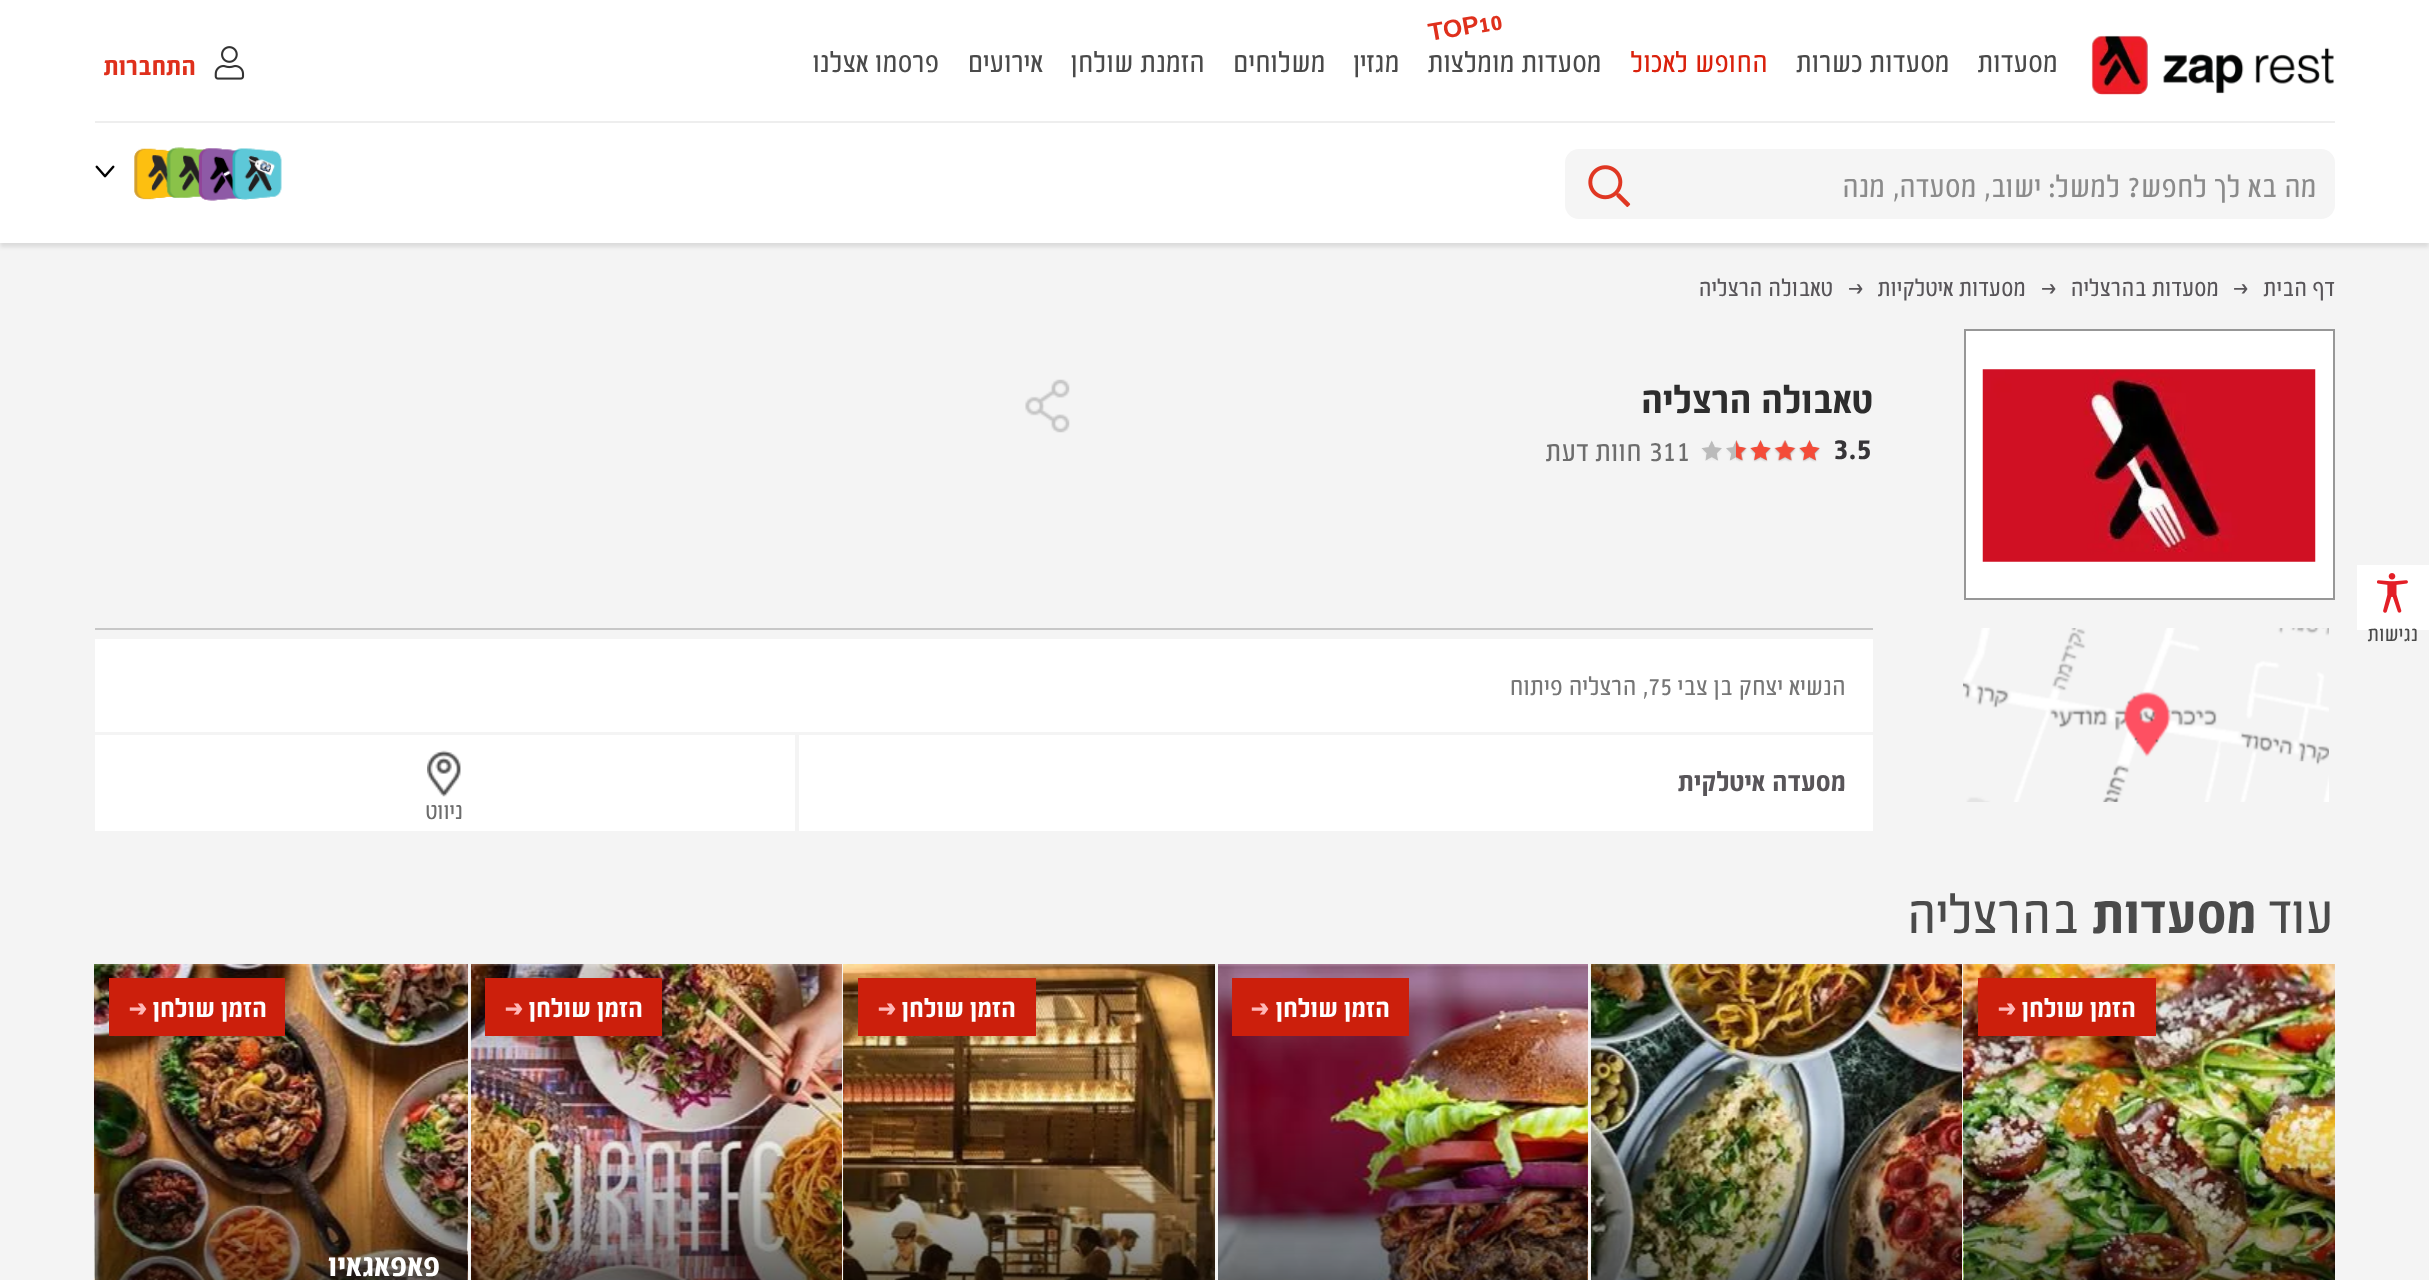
<svg xmlns="http://www.w3.org/2000/svg" width="2429" height="1280">
	<rect width="100%" height="100%" fill="#F4F4F4" />
	<rect x="0" y="4" width="2429" height="243" fill="#000000" fill-opacity="0.1" filter="blur(2px)" />
	<rect x="0" y="0" width="2429" height="243" fill="#FFFFFF" />
	<image x="2091" y="35" width="244" height="60" href="assets/img1.png" />
	<g font-family="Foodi" font-size="31.5" direction="rtl" fill="#4A4A4A">
		<text x="2058" y="72">מסעדות</text>
		<text x="1950" y="72">מסעדות כשרות</text>
	</g>
	<text x="1768" y="72" font-family="Foodi" font-size="31.5" direction="rtl" fill="#DA210C">החופש לאכול</text>
	<text x="1480" y="33" transform="rotate(-10 1480 33)" font-family="Foodi" font-size="25" font-weight="700" fill="#DF301C">10</text>
	<text x="1430" y="41" transform="rotate(-10 1430 41)" font-family="Liberation Sans" font-size="25" font-weight="700" fill="#DF301C">TOP</text>
	<g font-family="Foodi" font-size="31.5" direction="rtl" fill="#4A4A4A">
		<text x="1602" y="72">מסעדות מומלצות</text>
		<text x="1400" y="72">מגזין</text>
		<text x="1326" y="72">משלוחים</text>
		<text x="1205" y="72">הזמנת שולחן</text>
		<text x="1043" y="72">אירועים</text>
		<text x="939" y="72">פרסמו אצלנו</text>
	</g>
	<image x="214" y="46" width="31" height="34" href="assets/img2.png" />
	<text x="196" y="75" font-family="Foodi" font-size="28" font-weight="700" direction="rtl" fill="#DF301C">התחברות</text>
	<rect x="95" y="121" width="2240" height="2" fill="#EEEEEE" />
	<rect x="1565" y="149" width="770" height="70" rx="14" fill="#F5F5F5" />
	<text x="2317" y="197" font-family="Foodi" font-size="33.6" direction="rtl" fill="#8B8B8B">מה בא לך לחפש? למשל: ישוב, מסעדה, מנה</text>
	<image x="1588" y="165" width="43" height="42" href="assets/img3.png" />
	<image x="134" y="148" width="42" height="52" href="assets/img7.png" />
	<image x="166" y="147" width="42" height="51" href="assets/img6.png" />
	<image x="198" y="148" width="42" height="53" href="assets/img5.png" />
	<image x="232" y="148" width="50" height="52" href="assets/img4.png" />
	<image x="95" y="165" width="20" height="13" href="assets/img8.png" />
	<rect x="2357" y="565" width="72" height="65" fill="#FFFFFF" />
	<image x="2377" y="573" width="31" height="40" href="assets/img9.png" />
	<text x="2418" y="641" font-family="Foodi" font-size="23" direction="rtl" fill="#4A4A4A">נגישות</text>
	<text x="2335" y="296" font-family="Foodi" font-size="26.25" direction="rtl" fill="#585559">דף הבית</text>
	<text x="2232" y="296" font-family="Foodi" font-size="26.25" fill="#585559">&gt;</text>
	<text x="2219" y="296" font-family="Foodi" font-size="26.25" direction="rtl" fill="#585559">מסעדות בהרצליה</text>
	<text x="2040" y="296" font-family="Foodi" font-size="26.25" fill="#585559">&gt;</text>
	<text x="2026" y="296" font-family="Foodi" font-size="26.25" direction="rtl" fill="#585559">מסעדות איטלקיות</text>
	<text x="1847" y="296" font-family="Foodi" font-size="26.25" fill="#585559">&gt;</text>
	<text x="1833" y="296" font-family="Foodi" font-size="26.25" direction="rtl" fill="#585559">טאבולה הרצליה</text>
	<rect x="1965" y="330" width="369" height="269" fill="#FFFFFF" stroke="#979797" stroke-width="2" />
	<image x="1982" y="369" width="334" height="193" href="assets/img10.png" />
	<text x="1873" y="413" font-family="Foodi" font-size="42" font-weight="700" direction="rtl" fill="#2D2D2D">טאבולה הרצליה</text>
	<image x="1025" y="379" width="45" height="54" href="assets/img11.png" />
	<text x="1833" y="459" font-family="Foodi" font-size="33" font-weight="700" fill="#373538">3.5</text>
	<image x="1726" y="440" width="21" height="21" href="assets/img12.png" />
	<image x="1701" y="440" width="21" height="21" href="assets/img13.png" />
	<image x="1799" y="440" width="21" height="21" href="assets/img18.png" />
	<image x="1799" y="440" width="21" height="22" href="assets/img14.png" />
	<image x="1775" y="440" width="21" height="21" href="assets/img12.png" />
	<image x="1774" y="440" width="22" height="22" href="assets/img15.png" />
	<image x="1750" y="440" width="21" height="21" href="assets/img13.png" />
	<image x="1750" y="440" width="21" height="22" href="assets/img16.png" />
	<image x="1736" y="440" width="11" height="22" href="assets/img17.png" />
	<text x="1649" y="461" font-family="Foodi" font-size="31.5" fill="#6D6D6D">311</text>
	<text x="1642" y="461" font-family="Foodi" font-size="31.5" direction="rtl" fill="#6D6D6D">חוות דעת</text>
	<image x="1963" y="628" width="366" height="174" href="assets/img19.png" />
	<rect x="95" y="628" width="1778" height="2" fill="#C7C7C7" />
	<rect x="95" y="639" width="1778" height="93" fill="#FFFFFF" />
	<text x="1846" y="695" font-family="Foodi" font-size="28" direction="rtl" fill="#767676">הנשיא יצחק בן צבי</text>
	<text x="1648" y="695" font-family="Foodi" font-size="28" fill="#767676">75</text>
	<text x="1648" y="695" font-family="Foodi" font-size="28" direction="rtl" fill="#767676">, הרצליה פיתוח</text>
	<rect x="95" y="735" width="1778" height="96" fill="#FFFFFF" />
	<text x="1846" y="791" font-family="Foodi" font-size="29.75" font-weight="700" direction="rtl" fill="#585559">מסעדה איטלקית</text>
	<rect x="795" y="735" width="4" height="96" fill="#F4F4F4" />
	<image x="427" y="750" width="34" height="47" href="assets/img20.png" />
	<text x="463" y="819" font-family="Foodi" font-size="26" direction="rtl" fill="#6D6D6D">ניווט</text>
	<text x="2334" y="933" font-family="Foodi" font-size="59.5" direction="rtl" fill="#4A4A4A">עוד</text>
	<text x="2257" y="933" font-family="Foodi" font-size="59.5" font-weight="700" direction="rtl" fill="#4A4A4A">מסעדות</text>
	<text x="2079" y="933" font-family="Foodi" font-size="59.5" direction="rtl" fill="#4A4A4A">בהרצליה</text>
	<image x="1963" y="964" width="372" height="316" href="assets/img21.png" />
	<rect x="1978" y="985" width="178" height="58" fill="#000000" fill-opacity="0.07" filter="blur(7px)" />
	<rect x="1978" y="978" width="178" height="58" fill="#CC1F0C" />
	<text x="2136" y="1017" font-family="Foodi" font-size="28.5" font-weight="700" direction="rtl" fill="#FFFFFF">הזמן שולחן</text>
	<text x="1997" y="1017" font-family="Foodi" font-size="28.5" font-weight="700" fill="#FFB7B7">&gt;</text>
	<image x="1591" y="964" width="371" height="316" href="assets/img22.png" />
	<image x="1218" y="964" width="370" height="316" href="assets/img23.png" />
	<rect x="1232" y="978" width="177" height="58" fill="#CC1F0C" />
	<text x="1390" y="1017" font-family="Foodi" font-size="28.5" font-weight="700" direction="rtl" fill="#FFFFFF">הזמן שולחן</text>
	<text x="1250" y="1017" font-family="Foodi" font-size="28.5" font-weight="700" fill="#FFB7B7">&gt;</text>
	<image x="843" y="964" width="372" height="316" href="assets/img24.png" />
	<rect x="858" y="985" width="178" height="58" fill="#000000" fill-opacity="0.07" filter="blur(7px)" />
	<rect x="858" y="978" width="178" height="58" fill="#CC1F0C" />
	<text x="1016" y="1017" font-family="Foodi" font-size="28.5" font-weight="700" direction="rtl" fill="#FFFFFF">הזמן שולחן</text>
	<text x="877" y="1017" font-family="Foodi" font-size="28.5" font-weight="700" fill="#FFB7B7">&gt;</text>
	<image x="471" y="964" width="371" height="316" href="assets/img25.png" />
	<rect x="485" y="985" width="177" height="58" fill="#000000" fill-opacity="0.07" filter="blur(7px)" />
	<rect x="485" y="978" width="177" height="58" fill="#CC1F0C" />
	<text x="643" y="1017" font-family="Foodi" font-size="28.5" font-weight="700" direction="rtl" fill="#FFFFFF">הזמן שולחן</text>
	<text x="504" y="1017" font-family="Foodi" font-size="28.5" font-weight="700" fill="#FFB7B7">&gt;</text>
	<image x="94" y="964" width="374" height="316" href="assets/img26.png" />
	<rect x="109" y="985" width="176" height="58" fill="#000000" fill-opacity="0.07" filter="blur(7px)" />
	<rect x="109" y="978" width="176" height="58" fill="#CC1F0C" />
	<text x="267" y="1017" font-family="Foodi" font-size="28.5" font-weight="700" direction="rtl" fill="#FFFFFF">הזמן שולחן</text>
	<text x="128" y="1017" font-family="Foodi" font-size="28.5" font-weight="700" fill="#FFB7B7">&gt;</text>
	<text x="440" y="1276" font-family="Foodi" font-size="35" font-weight="700" direction="rtl" fill="#FFFFFF">פאפאגאיו</text>
</svg>
